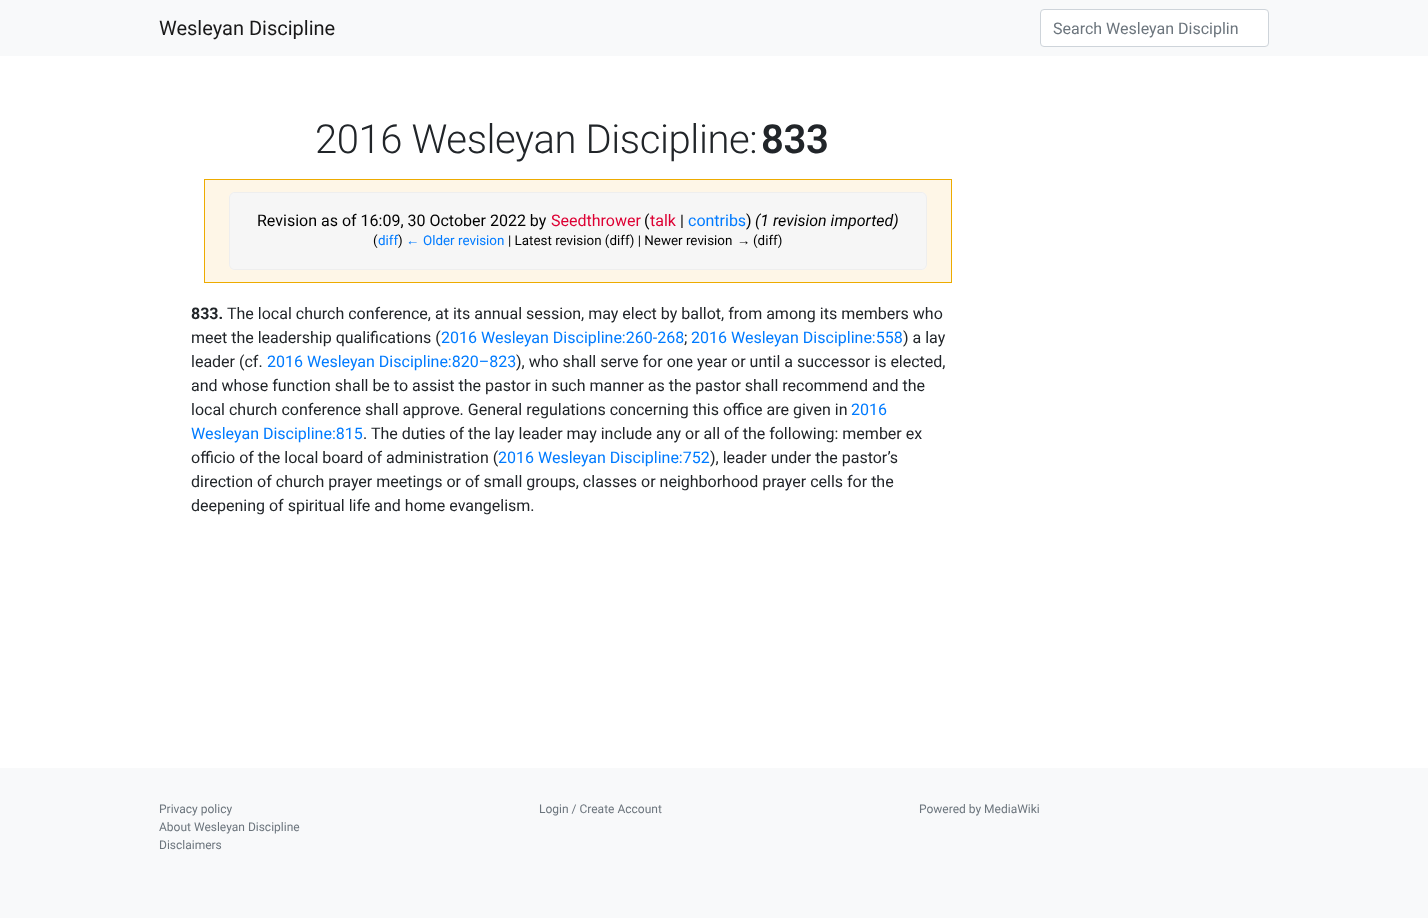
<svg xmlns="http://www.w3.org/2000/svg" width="1428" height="918">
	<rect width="100%" height="100%" fill="#FFFFFF" />
	<rect x="0" y="0" width="1428" height="56" fill="#F8F9FA" />
	<text x="159" y="35" font-family="Roboto" font-size="20" fill="#191919">Wesleyan Discipline</text>
	<rect x="1040.5" y="9.5" width="228" height="37" rx="3.5" fill="#FFFFFF" stroke="#CED4DA" />
	<text x="1053" y="34" font-family="Roboto" font-size="16" fill="#6C757D">Search Wesleyan Disciplin</text>
	<text x="315" y="153" font-family="Roboto" font-size="40" font-weight="300" letter-spacing="-0.4" fill="#212529">2016 Wesleyan Discipline:</text>
	<text x="761" y="153" font-family="Roboto" font-size="40" font-weight="600" letter-spacing="-0.4" fill="#212529">833</text>
	<rect x="204.5" y="179.5" width="747" height="103" fill="#FEF6E7" stroke="#EDAB00" />
	<path d="M235 192H921C924.5 192 927 194.5 927 198V233H229V198C229 194.5 231.5 192 235 192Z" fill="#F6F6F6" />
	<path d="M235 192H921C924 192 927 195 927 198V233H229V198C229 195 232 192 235 192ZM235 193H921C924 193 926 195 926 198V233H230V198C230 195 232 193 235 193Z" fill="#EEEEEE" fill-rule="evenodd" />
	<text x="257" y="226" font-family="Roboto" font-size="16" fill="#000000">Revision as of 16:09, 30 October 2022 by</text>
	<text x="551" y="226" font-family="Roboto" font-size="16" fill="#DD0033">Seedthrower</text>
	<text x="644" y="226" font-family="Roboto" font-size="16" fill="#000000">(</text>
	<text x="650" y="226" font-family="Roboto" font-size="16" fill="#DD0033">talk</text>
	<text x="680" y="226" font-family="Roboto" font-size="16" fill="#000000">|</text>
	<text x="688" y="226" font-family="Roboto" font-size="16" fill="#007BFF">contribs</text>
	<text x="746" y="226" font-family="Roboto" font-size="16" fill="#000000">)</text>
	<text x="755" y="226" font-family="Roboto" font-size="16" font-style="italic" fill="#000000">(1 revision imported)</text>
	<path d="M229 233H927V264C927 267.5 924.5 270 921 270H235C231.5 270 229 267.5 229 264Z" fill="#F6F6F6" />
	<path d="M229 233H927V264C927 267 924 270 921 270H235C232 270 229 267 229 264ZM230 233H926V264C926 267 924 269 921 269H235C232 269 230 267 230 264Z" fill="#EEEEEE" fill-rule="evenodd" />
	<text x="373" y="245" font-family="Roboto" font-size="13.4" fill="#000000">(</text>
	<text x="378" y="245" font-family="Roboto" font-size="13.4" fill="#007BFF">diff</text>
	<text x="398" y="245" font-family="Roboto" font-size="13.4" fill="#000000">)</text>
	<text x="406" y="245" font-family="Liberation Sans" font-size="13.4" fill="#007BFF">←</text>
	<text x="423" y="245" font-family="Roboto" font-size="13.4" fill="#007BFF">Older revision</text>
	<text x="508" y="245" font-family="Roboto" font-size="13.4" fill="#000000">| Latest revision (diff) | Newer revision</text>
	<text x="737" y="245" font-family="Liberation Sans" font-size="13.4" fill="#000000">→</text>
	<text x="753" y="245" font-family="Roboto" font-size="13.4" fill="#000000">(diff)</text>
	<text x="191" y="319" font-family="Roboto" font-size="16" font-weight="700" fill="#212529">833.</text>
	<g font-family="Roboto" font-size="16" fill="#212529">
		<text x="227" y="319">The local church conference, at its annual session, may elect by ballot, from among its members who</text>
		<text x="191" y="343">meet the leadership qualifications (</text>
	</g>
	<text x="441" y="343" font-family="Roboto" font-size="16" fill="#007BFF">2016 Wesleyan Discipline:260-268</text>
	<text x="684" y="343" font-family="Roboto" font-size="16" fill="#212529">;</text>
	<text x="691" y="343" font-family="Roboto" font-size="16" fill="#007BFF">2016 Wesleyan Discipline:558</text>
	<g font-family="Roboto" font-size="16" fill="#212529">
		<text x="903" y="343">) a lay</text>
		<text x="191" y="367">leader (cf.</text>
	</g>
	<text x="267" y="367" font-family="Roboto" font-size="16" fill="#007BFF">2016 Wesleyan Discipline:820–823</text>
	<g font-family="Roboto" font-size="16" fill="#212529">
		<text x="516" y="367">), who shall serve for one year or until a successor is elected,</text>
		<text x="191" y="391">and whose function shall be to assist the pastor in such manner as the pastor shall recommend and the</text>
		<text x="191" y="415">local church conference shall approve. General regulations concerning this office are given in</text>
	</g>
	<g font-family="Roboto" font-size="16" fill="#007BFF">
		<text x="851" y="415">2016</text>
		<text x="191" y="439">Wesleyan Discipline:815</text>
	</g>
	<g font-family="Roboto" font-size="16" fill="#212529">
		<text x="363" y="439">. The duties of the lay leader may include any or all of the following: member ex</text>
		<text x="191" y="463">officio of the local board of administration (</text>
	</g>
	<text x="498" y="463" font-family="Roboto" font-size="16" fill="#007BFF">2016 Wesleyan Discipline:752</text>
	<g font-family="Roboto" font-size="16" fill="#212529">
		<text x="710" y="463">), leader under the pastor’s</text>
		<text x="191" y="487">direction of church prayer meetings or of small groups, classes or neighborhood prayer cells for the</text>
		<text x="191" y="511">deepening of spiritual life and home evangelism.</text>
	</g>
	<rect x="0" y="768" width="1428" height="150" fill="#F8F9FA" />
	<g font-family="Roboto" font-size="12" fill="#6C757D">
		<text x="159" y="813">Privacy policy</text>
		<text x="159" y="831">About Wesleyan Discipline</text>
		<text x="159" y="849">Disclaimers</text>
		<text x="539" y="813">Login / Create Account</text>
		<text x="919" y="813">Powered by MediaWiki</text>
	</g>
</svg>
